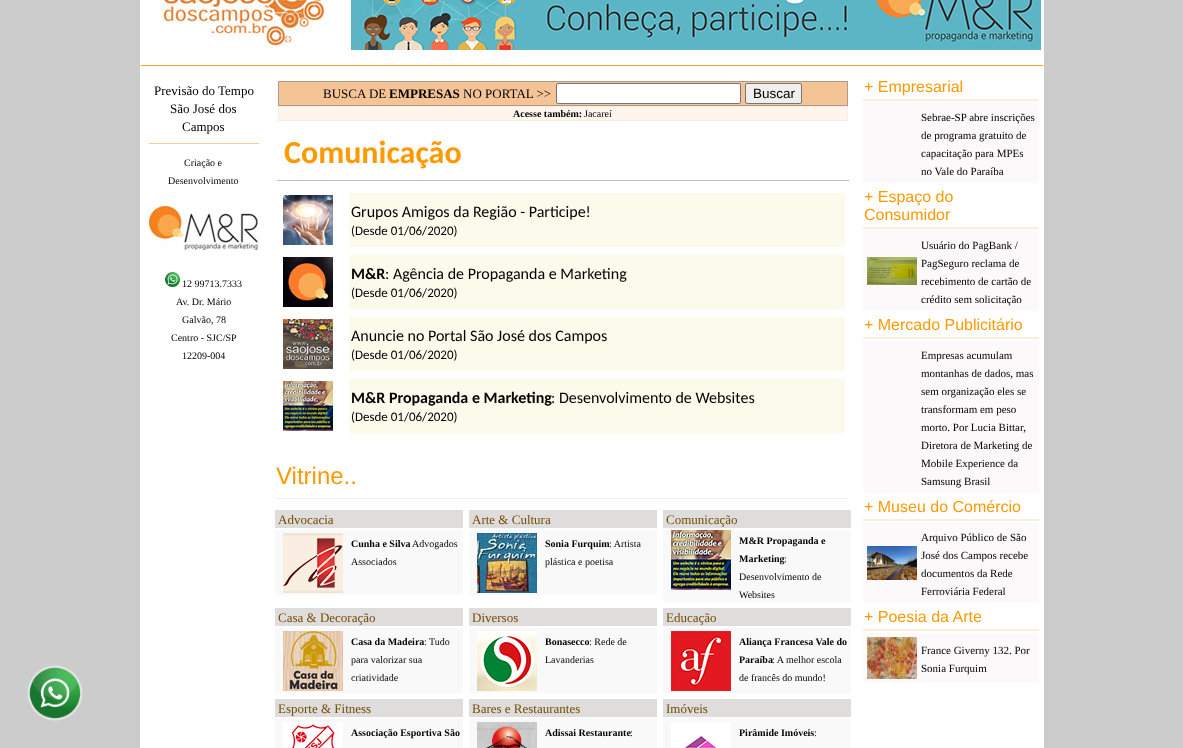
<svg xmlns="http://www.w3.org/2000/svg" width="1183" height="748">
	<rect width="100%" height="100%" fill="#CCCCCC" />
	<image x="27" y="665" width="56" height="56" href="assets/img1.png" />
	<rect x="140" y="0" width="904" height="748" fill="#FFFFFF" />
	<image x="162" y="0" width="168" height="47" href="assets/img2.png" />
	<image x="351" y="0" width="690" height="50" href="assets/img3.png" />
	<rect x="141" y="65" width="902" height="1" fill="#FAA22F" />
	<g font-family="Liberation Serif" font-size="13" fill="#000000">
		<text x="154" y="95">Previsão do Tempo</text>
		<text x="170" y="113">São José dos</text>
		<text x="182" y="131">Campos</text>
	</g>
	<rect x="149" y="143" width="110" height="1" fill="#FACE95" />
	<g font-family="Liberation Serif" font-size="10" fill="#000000">
		<text x="184" y="166">Criação e</text>
		<text x="168" y="184">Desenvolvimento</text>
	</g>
	<image x="149" y="206" width="110" height="44" href="assets/img4.png" />
	<image x="165" y="272" width="15" height="15" href="assets/img5.png" />
	<g font-family="Liberation Serif" font-size="10" fill="#000000">
		<text x="182" y="287">12 99713.7333</text>
		<text x="176" y="305">Av. Dr. Mário</text>
		<text x="182" y="323">Galvão, 78</text>
		<text x="171" y="341">Centro - SJC/SP</text>
		<text x="182" y="359">12209-004</text>
	</g>
	<rect x="278" y="81" width="570" height="25" fill="#B09989" />
	<rect x="279" y="82" width="568" height="23" fill="#F4C497" />
	<text x="323" y="98" font-family="Liberation Serif" font-size="13" fill="#000000">BUSCA DE</text>
	<text x="389" y="98" font-family="Liberation Serif" font-size="13" font-weight="700" fill="#000000">EMPRESAS</text>
	<text x="463" y="98" font-family="Liberation Serif" font-size="13" fill="#000000">NO PORTAL &gt;&gt;</text>
	<rect x="556.5" y="83.5" width="184" height="20" rx="1.5" fill="#FFFFFF" stroke="#767676" />
	<rect x="745.5" y="83.5" width="56" height="20" rx="1.5" fill="#EFEFEF" stroke="#767676" />
	<text x="753" y="98" font-family="Liberation Sans" font-size="13.5" fill="#000000">Buscar</text>
	<rect x="278" y="106" width="570" height="15" fill="#FFEBDD" />
	<rect x="279" y="107" width="568" height="13" fill="#FEF5ED" />
	<text x="513" y="117" font-family="Liberation Serif" font-size="10" font-weight="700" fill="#000000">Acesse também:</text>
	<text x="584" y="117" font-family="Liberation Serif" font-size="10" fill="#000000">Jacareí</text>
	<text x="284" y="163" font-family="Carlito" font-size="32" font-weight="700" fill="#FF9900">Comunicação</text>
	<rect x="277" y="180" width="572" height="1" fill="#C0C0C0" />
	<image x="283" y="195" width="50" height="50" href="assets/img6.png" />
	<rect x="349" y="193" width="496" height="54" fill="#FCFAEB" />
	<text x="351" y="217" font-family="Carlito" font-size="16" fill="#000000">Grupos Amigos da Região - Participe!</text>
	<text x="351" y="235" font-family="Carlito" font-size="13" fill="#000000">(Desde 01/06/2020)</text>
	<image x="283" y="257" width="50" height="50" href="assets/img7.png" />
	<rect x="349" y="255" width="496" height="54" fill="#FCFAEB" />
	<text x="351" y="279" font-family="Carlito" font-size="16" font-weight="700" fill="#000000">M&amp;R</text>
	<text x="385" y="279" font-family="Carlito" font-size="16" fill="#000000">: Agência de Propaganda e Marketing</text>
	<text x="351" y="297" font-family="Carlito" font-size="13" fill="#000000">(Desde 01/06/2020)</text>
	<image x="283" y="319" width="50" height="50" href="assets/img8.png" />
	<rect x="349" y="317" width="496" height="54" fill="#FCFAEB" />
	<text x="351" y="341" font-family="Carlito" font-size="16" fill="#000000">Anuncie no Portal São José dos Campos</text>
	<text x="351" y="359" font-family="Carlito" font-size="13" fill="#000000">(Desde 01/06/2020)</text>
	<image x="283" y="381" width="50" height="50" href="assets/img9.png" />
	<rect x="349" y="379" width="496" height="54" fill="#FCFAEB" />
	<text x="351" y="403" font-family="Carlito" font-size="16" font-weight="700" fill="#000000">M&amp;R Propaganda e Marketing</text>
	<text x="551" y="403" font-family="Carlito" font-size="16" fill="#000000">: Desenvolvimento de Websites</text>
	<text x="351" y="421" font-family="Carlito" font-size="13" fill="#000000">(Desde 01/06/2020)</text>
	<text x="276" y="484" font-family="Liberation Sans" font-size="24" fill="#FF9900">Vitrine..</text>
	<rect x="276" y="498" width="573" height="1" fill="#F9EEDB" />
	<rect x="275" y="510" width="188" height="18" fill="#DEDDDB" />
	<text x="278" y="524" font-family="Liberation Serif" font-size="13" fill="#744C06">Advocacia</text>
	<rect x="275" y="530" width="188" height="65" fill="#F9F9F9" />
	<image x="283" y="533" width="60" height="60" href="assets/img10.png" />
	<text x="351" y="547" font-family="Liberation Serif" font-size="10" font-weight="700" fill="#000000">Cunha e Silva</text>
	<g font-family="Liberation Serif" font-size="10" fill="#000000">
		<text x="412" y="547">Advogados</text>
		<text x="351" y="565">Associados</text>
	</g>
	<rect x="469" y="510" width="188" height="18" fill="#DEDDDB" />
	<text x="472" y="524" font-family="Liberation Serif" font-size="13" fill="#744C06">Arte &amp; Cultura</text>
	<rect x="469" y="530" width="188" height="65" fill="#F9F9F9" />
	<image x="477" y="533" width="60" height="60" href="assets/img11.png" />
	<text x="545" y="547" font-family="Liberation Serif" font-size="10" font-weight="700" fill="#000000">Sonia Furquim</text>
	<g font-family="Liberation Serif" font-size="10" fill="#000000">
		<text x="609" y="547">: Artista</text>
		<text x="545" y="565">plástica e poetisa</text>
	</g>
	<rect x="663" y="510" width="188" height="18" fill="#DEDDDB" />
	<text x="666" y="524" font-family="Liberation Serif" font-size="13" fill="#744C06">Comunicação</text>
	<rect x="663" y="530" width="188" height="72" fill="#F9F9F9" />
	<image x="671" y="530" width="60" height="60" href="assets/img12.png" />
	<g font-family="Liberation Serif" font-size="10" font-weight="700" fill="#000000">
		<text x="739" y="544">M&amp;R Propaganda e</text>
		<text x="739" y="562">Marketing</text>
	</g>
	<g font-family="Liberation Serif" font-size="10" fill="#000000">
		<text x="784" y="562">:</text>
		<text x="739" y="580">Desenvolvimento de</text>
		<text x="739" y="598">Websites</text>
	</g>
	<rect x="275" y="608" width="188" height="18" fill="#DEDDDB" />
	<text x="278" y="622" font-family="Liberation Serif" font-size="13" fill="#744C06">Casa &amp; Decoração</text>
	<rect x="275" y="628" width="188" height="65" fill="#F9F9F9" />
	<image x="283" y="631" width="60" height="60" href="assets/img13.png" />
	<text x="351" y="645" font-family="Liberation Serif" font-size="10" font-weight="700" fill="#000000">Casa da Madeira</text>
	<g font-family="Liberation Serif" font-size="10" fill="#000000">
		<text x="424" y="645">: Tudo</text>
		<text x="351" y="663">para valorizar sua</text>
		<text x="351" y="681">criatividade</text>
	</g>
	<rect x="469" y="608" width="188" height="18" fill="#DEDDDB" />
	<text x="472" y="622" font-family="Liberation Serif" font-size="13" fill="#744C06">Diversos</text>
	<rect x="469" y="628" width="188" height="65" fill="#F9F9F9" />
	<image x="477" y="631" width="60" height="60" href="assets/img14.png" />
	<text x="545" y="645" font-family="Liberation Serif" font-size="10" font-weight="700" fill="#000000">Bonasecco</text>
	<g font-family="Liberation Serif" font-size="10" fill="#000000">
		<text x="589" y="645">: Rede de</text>
		<text x="545" y="663">Lavanderias</text>
	</g>
	<rect x="663" y="608" width="188" height="18" fill="#DEDDDB" />
	<text x="666" y="622" font-family="Liberation Serif" font-size="13" fill="#744C06">Educação</text>
	<rect x="663" y="628" width="188" height="65" fill="#F9F9F9" />
	<image x="671" y="631" width="60" height="60" href="assets/img15.png" />
	<g font-family="Liberation Serif" font-size="10" font-weight="700" fill="#000000">
		<text x="739" y="645">Aliança Francesa Vale do</text>
		<text x="739" y="663">Paraíba</text>
	</g>
	<g font-family="Liberation Serif" font-size="10" fill="#000000">
		<text x="772" y="663">: A melhor escola</text>
		<text x="739" y="681">de francês do mundo!</text>
	</g>
	<rect x="275" y="699" width="188" height="18" fill="#DEDDDB" />
	<text x="278" y="713" font-family="Liberation Serif" font-size="13" fill="#744C06">Esporte &amp; Fitness</text>
	<rect x="275" y="719" width="188" height="29" fill="#F9F9F9" />
	<image x="283" y="722" width="60" height="26" href="assets/img16.png" />
	<text x="351" y="736" font-family="Liberation Serif" font-size="10" font-weight="700" fill="#000000">Associação Esportiva São</text>
	<rect x="469" y="699" width="188" height="18" fill="#DEDDDB" />
	<text x="472" y="713" font-family="Liberation Serif" font-size="13" fill="#744C06">Bares e Restaurantes</text>
	<rect x="469" y="719" width="188" height="29" fill="#F9F9F9" />
	<image x="477" y="722" width="60" height="26" href="assets/img17.png" />
	<text x="545" y="736" font-family="Liberation Serif" font-size="10" font-weight="700" fill="#000000">Adissai Restaurante</text>
	<text x="630" y="736" font-family="Liberation Serif" font-size="10" fill="#000000">:</text>
	<rect x="663" y="699" width="188" height="18" fill="#DEDDDB" />
	<text x="666" y="713" font-family="Liberation Serif" font-size="13" fill="#744C06">Imóveis</text>
	<rect x="663" y="719" width="188" height="29" fill="#F9F9F9" />
	<image x="671" y="722" width="60" height="26" href="assets/img18.png" />
	<text x="739" y="736" font-family="Liberation Serif" font-size="10" font-weight="700" fill="#000000">Pirâmide Imóveis</text>
	<text x="814" y="736" font-family="Liberation Serif" font-size="10" fill="#000000">:</text>
	<text x="864" y="92" font-family="Liberation Sans" font-size="16" fill="#FF9900">+ Empresarial</text>
	<rect x="863" y="99" width="176" height="2" fill="#F9EEDB" />
	<rect x="863" y="103" width="176" height="80" fill="#FBF9F9" />
	<g font-family="Liberation Serif" font-size="11" fill="#000000">
		<text x="921" y="121">Sebrae-SP abre inscrições</text>
		<text x="921" y="139">de programa gratuito de</text>
		<text x="921" y="157">capacitação para MPEs</text>
		<text x="921" y="175">no Vale do Paraíba</text>
	</g>
	<g font-family="Liberation Sans" font-size="16" fill="#FF9900">
		<text x="864" y="202">+ Espaço do</text>
		<text x="864" y="220">Consumidor</text>
	</g>
	<rect x="863" y="227" width="176" height="2" fill="#F9EEDB" />
	<rect x="863" y="231" width="176" height="80" fill="#FBF9F9" />
	<image x="867" y="257" width="50" height="28" href="assets/img19.png" />
	<g font-family="Liberation Serif" font-size="11" fill="#000000">
		<text x="921" y="249">Usuário do PagBank /</text>
		<text x="921" y="267">PagSeguro reclama de</text>
		<text x="921" y="285">recebimento de cartão de</text>
		<text x="921" y="303">crédito sem solicitação</text>
	</g>
	<text x="864" y="330" font-family="Liberation Sans" font-size="16" fill="#FF9900">+ Mercado Publicitário</text>
	<rect x="863" y="337" width="176" height="2" fill="#F9EEDB" />
	<rect x="863" y="341" width="176" height="152" fill="#FBF9F9" />
	<g font-family="Liberation Serif" font-size="11" fill="#000000">
		<text x="921" y="359">Empresas acumulam</text>
		<text x="921" y="377">montanhas de dados, mas</text>
		<text x="921" y="395">sem organização eles se</text>
		<text x="921" y="413">transformam em peso</text>
		<text x="921" y="431">morto. Por Lucia Bittar,</text>
		<text x="921" y="449">Diretora de Marketing de</text>
		<text x="921" y="467">Mobile Experience da</text>
		<text x="921" y="485">Samsung Brasil</text>
	</g>
	<text x="864" y="512" font-family="Liberation Sans" font-size="16" fill="#FF9900">+ Museu do Comércio</text>
	<rect x="863" y="519" width="176" height="2" fill="#F9EEDB" />
	<rect x="863" y="523" width="176" height="80" fill="#FBF9F9" />
	<image x="867" y="546" width="50" height="34" href="assets/img20.png" />
	<g font-family="Liberation Serif" font-size="11" fill="#000000">
		<text x="921" y="541">Arquivo Público de São</text>
		<text x="921" y="559">José dos Campos recebe</text>
		<text x="921" y="577">documentos da Rede</text>
		<text x="921" y="595">Ferroviária Federal</text>
	</g>
	<text x="864" y="622" font-family="Liberation Sans" font-size="16" fill="#FF9900">+ Poesia da Arte</text>
	<rect x="863" y="629" width="176" height="2" fill="#F9EEDB" />
	<rect x="863" y="633" width="176" height="50" fill="#FBF9F9" />
	<image x="867" y="637" width="50" height="42" href="assets/img21.png" />
	<g font-family="Liberation Serif" font-size="11" fill="#000000">
		<text x="921" y="654">France Giverny 132. Por</text>
		<text x="921" y="672">Sonia Furquim</text>
	</g>
</svg>
